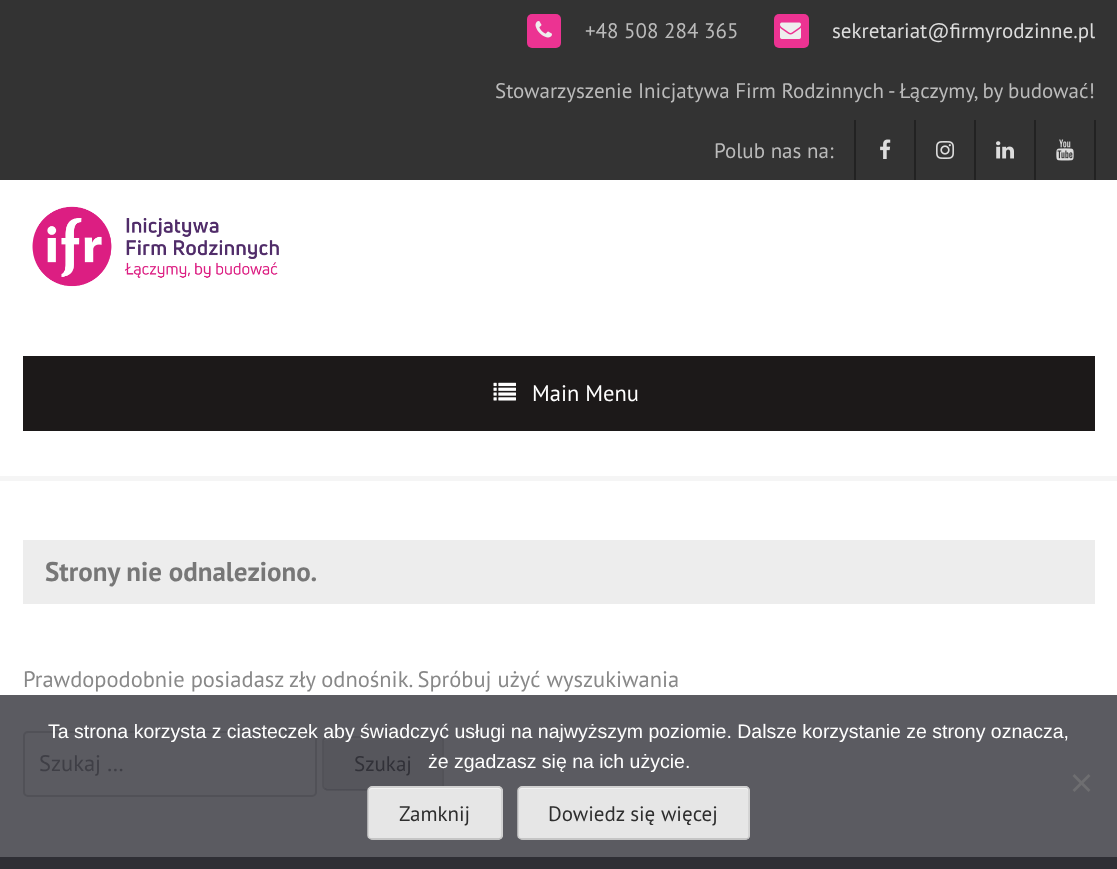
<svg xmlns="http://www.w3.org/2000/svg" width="1117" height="869">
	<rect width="100%" height="100%" fill="#FFFFFF" />
	<rect x="0" y="695" width="1117" height="162" fill="#5B5B61" />
	<rect x="0" y="476" width="1117" height="5" fill="#F5F5F5" />
	<rect x="0" y="0" width="1117" height="180" fill="#333333" />
	<rect x="527" y="14" width="34" height="34" rx="5" fill="#EC3392" />
	<image x="535" y="21" width="17" height="17" href="assets/img1.png" />
	<text x="585" y="38" font-family="PT Sans" font-size="21" fill="#BBBBBB">+48 508 284 365</text>
	<rect x="774" y="14" width="35" height="34" rx="5" fill="#EC3392" />
	<image x="780" y="22" width="21" height="17" href="assets/img2.png" />
	<text x="832" y="38" font-family="PT Sans" font-size="21" fill="#DDDDDD">sekretariat@firmyrodzinne.pl</text>
	<text x="495" y="98" font-family="PT Sans" font-size="21" fill="#BBBBBB">Stowarzyszenie Inicjatywa Firm Rodzinnych - Łączymy, by budować!</text>
	<rect x="1094" y="120" width="2" height="60" fill="#222222" />
	<text x="714" y="158" font-family="PT Sans" font-size="21" fill="#BBBBBB">Polub nas na:</text>
	<rect x="854" y="120" width="2" height="60" fill="#222222" />
	<image x="880" y="139" width="11" height="20" href="assets/img3.png" />
	<rect x="914" y="120" width="2" height="60" fill="#222222" />
	<image x="936" y="141" width="18" height="18" href="assets/img4.png" />
	<rect x="974" y="120" width="2" height="60" fill="#222222" />
	<image x="996" y="141" width="18" height="18" href="assets/img5.png" />
	<rect x="1034" y="120" width="2" height="60" fill="#222222" />
	<image x="1056" y="139" width="18" height="22" href="assets/img6.png" />
	<image x="32" y="206" width="247" height="81" href="assets/img7.png" />
	<rect x="23" y="356" width="1072" height="75" fill="#1C1919" />
	<image x="493" y="382" width="23" height="19" href="assets/img8.png" />
	<text x="532" y="401" font-family="PT Sans" font-size="22.5" fill="#FFFFFF">Main Menu</text>
	<rect x="23" y="540" width="1072" height="64" fill="#EDEDED" />
	<text x="45" y="581" font-family="PT Sans" font-size="27" font-weight="700" fill="#777777">Strony nie odnaleziono.</text>
	<text x="23" y="687" font-family="PT Sans" font-size="22.5" fill="#888888">Prawdopodobnie posiadasz zły odnośnik. Spróbuj użyć wyszukiwania</text>
	<rect x="24" y="732" width="292" height="64" rx="4" fill="none" stroke="#515157" stroke-width="2" />
	<text x="39" y="771" font-family="PT Sans" font-size="22.5" fill="#3F3F46">Szukaj …</text>
	<rect x="323" y="737" width="121" height="54" rx="5" fill="#56565C" />
	<path d="M327 740H421C446 740 442 735 442 757V788C443 788 443 787 443 786V741C443 739 442 738 440 738H327C325 738 324 739 324 741V742C324 741 325 740 327 740Z" fill="#59595F" />
	<path d="M442 788.5L439.5 790L326.5 789.5L324.5 788.5" fill="none" stroke="#4D4D54" stroke-width="1.5" />
	<path d="M324.5 788.5C323.5 788 323 787 323 786V741C323 740 323.5 739 324.5 738.5C325 737.5 326 737 327 737H439.5C440.5 737 441.5 737.5 442 738.5C443 739 443 740 443 741V786C443 787 443 788 442 788.5" fill="none" stroke="#515157" stroke-width="1.5" />
	<text x="354" y="771" font-family="PT Sans" font-size="21" fill="#313138">Szukaj</text>
	<rect x="0" y="857" width="1117" height="12" fill="#2F2F35" />
	<g font-family="Liberation Sans" font-size="19.5" fill="#FFFFFF">
		<text x="48" y="738">Ta strona korzysta z ciasteczek aby świadczyć usługi na najwyższym poziomie. Dalsze korzystanie ze strony oznacza,</text>
		<text x="428" y="768">że zgadzasz się na ich użycie.</text>
	</g>
	<path d="M1088.5 774L1090.5 776L1074.5 792L1072.5 790Z" fill="#6E6E71" />
	<path d="M1072.5 776L1074.5 774L1090.5 790L1088.5 792Z" fill="#6E6E71" />
	<rect x="368" y="786" width="135" height="54" rx="5" fill="#E6E6E6" />
	<path d="M372 789H498C500 789 501 790 501 792C501 790 501 788 499 788H371C369 788 369 790 369 792C369 790 370 789 372 789Z" fill="#F3F3F3" />
	<path d="M500.5 838C500 839 499 839 498 839H372C371 839 370 839 369.5 838" fill="none" stroke="#BBBBBB" stroke-width="1.5" />
	<path d="M369.5 838C368.5 837.5 368 836.5 368 835.5V790.5C368 789.5 368.5 788.5 369.5 788C370 787 371 787 372 787H498C499 787 500 787 500.5 788C501.5 788.5 502 789.5 502 790.5V835.5C502 836.5 501.5 837.5 500.5 838" fill="none" stroke="#CCCCCC" stroke-width="1.5" />
	<text x="399" y="821" font-family="PT Sans" font-size="21" fill="#2E2E2E">Zamknij</text>
	<rect x="518" y="786" width="232" height="54" rx="5" fill="#E6E6E6" />
	<path d="M522 789H746C747 789 748 790 748 792V838C749 838 749 837 749 836V791C749 789 748 788 746 788H522C520 788 519 789 519 791V792C519 790 520 789 522 789Z" fill="#F3F3F3" />
	<path d="M748 838C747.5 839 746.5 839 745.5 839H522C521 839 520 839 519.5 838" fill="none" stroke="#BBBBBB" stroke-width="1.5" />
	<path d="M519.5 838C518.5 837.5 518 836.5 518 835.5V790.5C518 789.5 518.5 788.5 519.5 788C520 787 521 787 522 787H745.5C746.5 787 747.5 787 748 788C749 788.5 749 789.5 749 790.5V835.5C749 836.5 749 837.5 748 838" fill="none" stroke="#CCCCCC" stroke-width="1.5" />
	<text x="548" y="821" font-family="PT Sans" font-size="21" fill="#2E2E2E">Dowiedz się więcej</text>
</svg>
